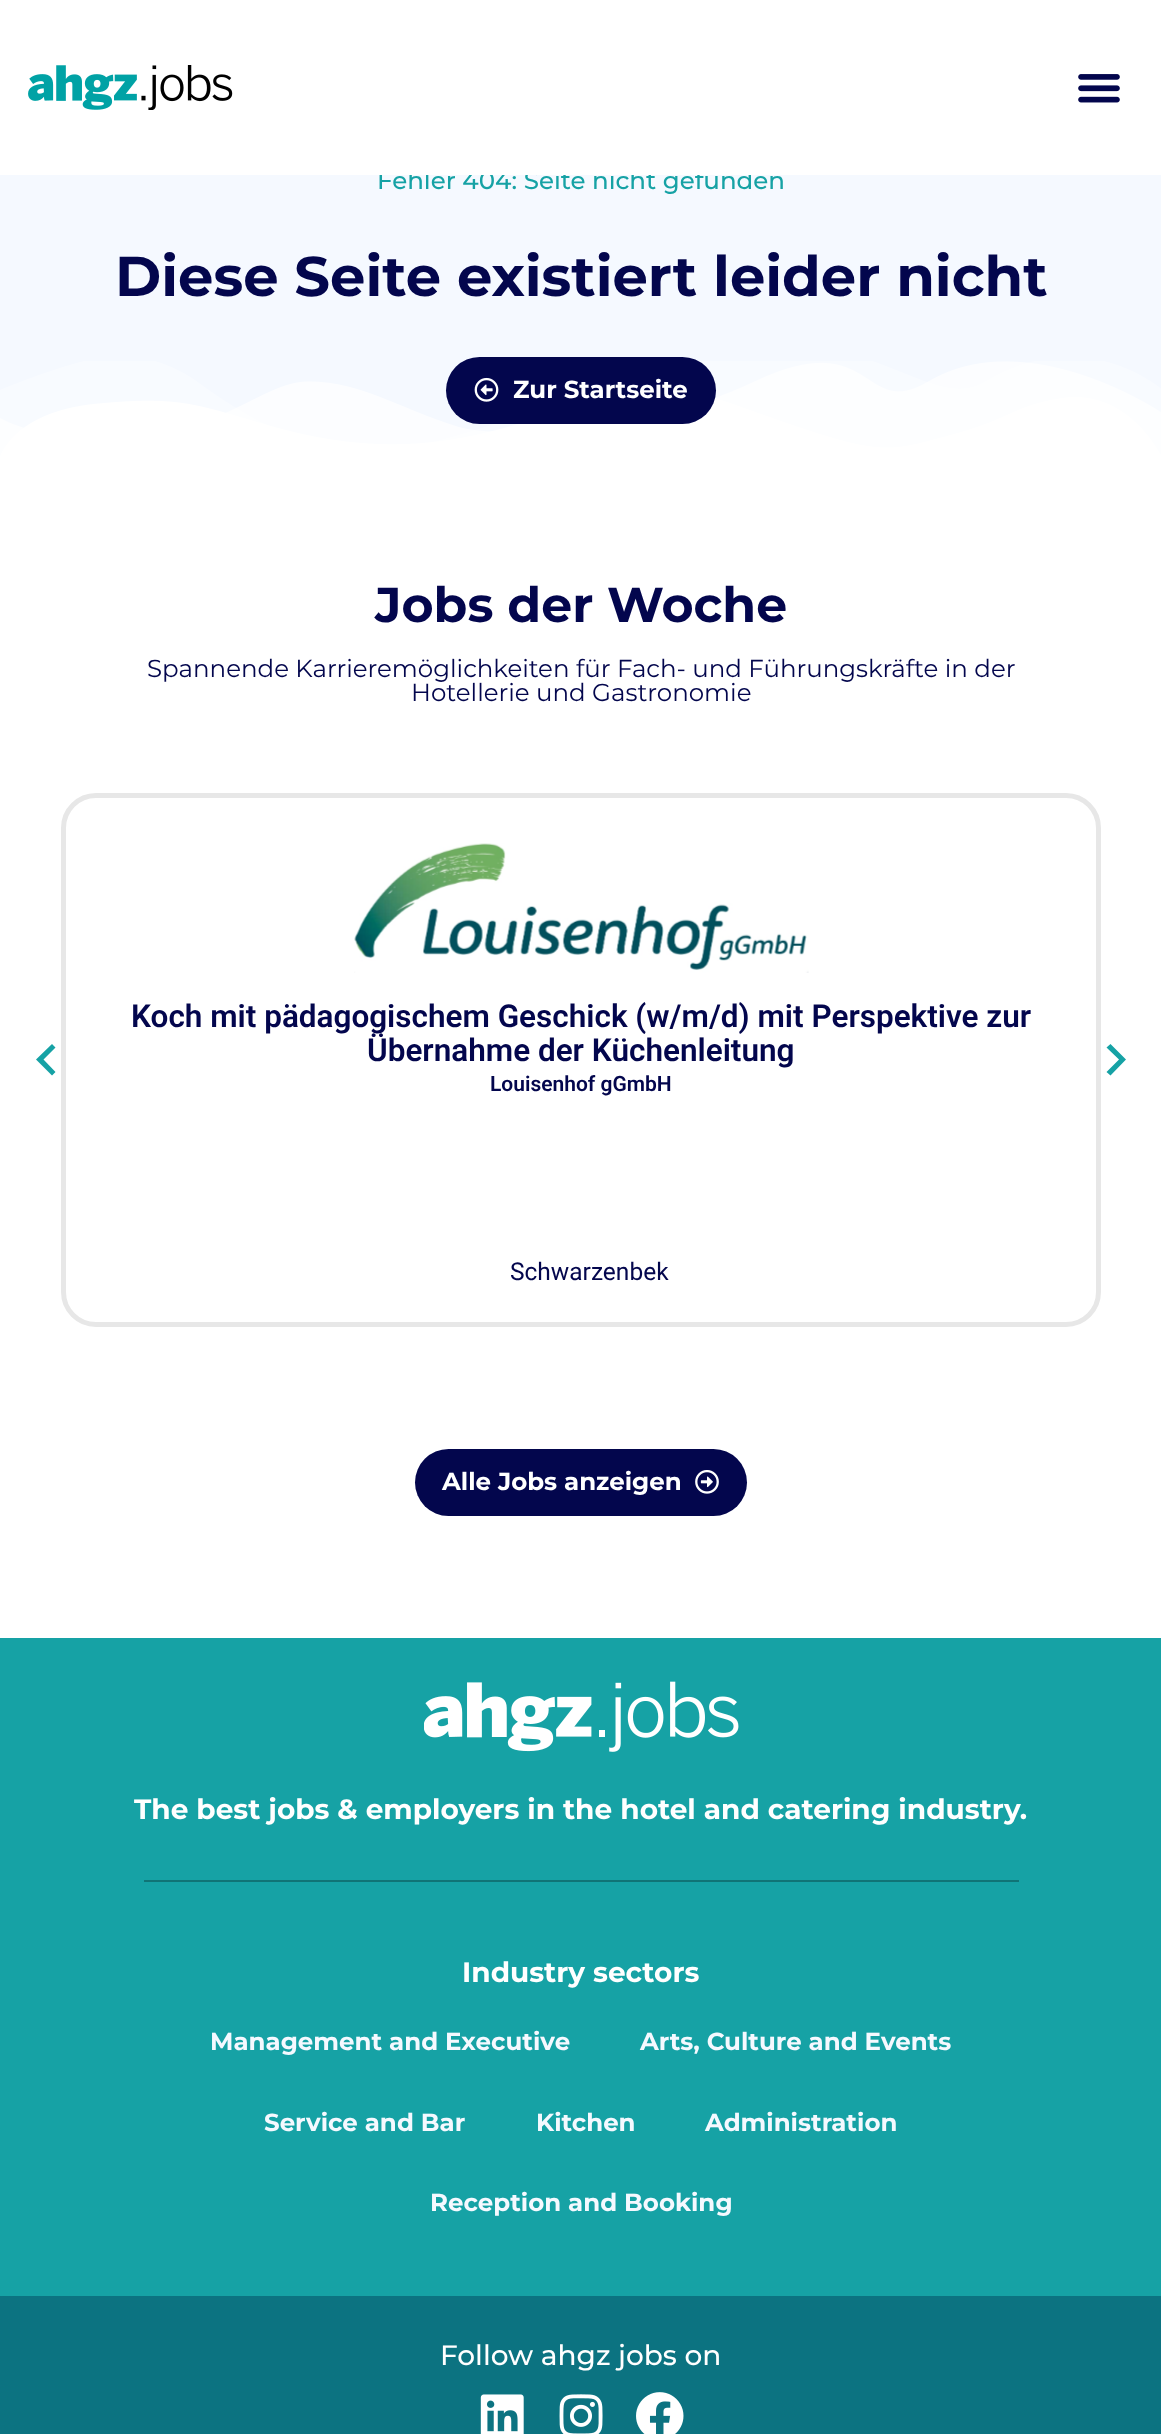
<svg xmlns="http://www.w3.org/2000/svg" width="1161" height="2434">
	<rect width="100%" height="100%" fill="#FFFFFF" />
	<rect x="0" y="175" width="1161" height="282" fill="#F5F9FF" />
	<text x="377" y="189" font-family="Montserrat" font-size="24.5" font-weight="500" fill="#16A2A5">Fehler 404: Seite nicht gefunden</text>
	<rect x="379" y="170" width="373" height="5" fill="#FFFFFF" />
	<image x="28" y="65" width="205" height="45" href="assets/img1.png" />
	<image x="1078" y="74" width="42" height="29" href="assets/img2.png" />
	<text x="115" y="296" font-family="Montserrat" font-size="56" font-weight="700" fill="#03064D">Diese Seite existiert leider nicht</text>
	<image x="0" y="361" width="1161" height="98" href="assets/img4.png" />
	<rect x="446" y="357" width="270" height="67" rx="33.5" fill="#03064D" />
	<image x="474" y="377" width="25" height="25" href="assets/img3.png" />
	<text x="513" y="398" font-family="Montserrat" font-size="24.5" font-weight="700" fill="#FFFFFF">Zur Startseite</text>
	<text x="375" y="622" font-family="Montserrat" font-size="49" font-weight="700" fill="#03064D">Jobs der Woche</text>
	<g font-family="Montserrat" font-size="24.5" fill="#03064D">
		<text x="147" y="677">Spannende Karrieremöglichkeiten für Fach- und Führungskräfte in der</text>
		<text x="411" y="701">Hotellerie und Gastronomie</text>
	</g>
	<rect x="63.5" y="795.5" width="1035" height="529" rx="32.5" fill="none" stroke="#E7E7E7" stroke-width="5" />
	<image x="354" y="843" width="455" height="130" href="assets/img5.png" />
	<g font-family="Roboto" font-size="31.5" font-weight="600" fill="#03064D">
		<text x="131" y="1027">Koch mit pädagogischem Geschick (w/m/d) mit Perspektive zur</text>
		<text x="367" y="1061">Übernahme der Küchenleitung</text>
	</g>
	<text x="490" y="1091" font-family="Roboto" font-size="21" font-weight="600" fill="#03064D">Louisenhof gGmbH</text>
	<text x="510" y="1280" font-family="Roboto" font-size="24.5" fill="#03064D">Schwarzenbek</text>
	<path d="M52 1044L55.5 1047.5L43.5 1059.5L55.5 1072L52 1075.5L36 1059.5Z" fill="#16A2A5" />
	<path d="M1110.5 1044L1106.5 1047.5L1119 1059.5L1106.5 1072L1110.5 1075.5L1126 1059.5Z" fill="#16A2A5" />
	<rect x="415" y="1449" width="332" height="67" rx="33.5" fill="#03064D" />
	<text x="442" y="1490" font-family="Montserrat" font-size="24.5" font-weight="700" fill="#FFFFFF">Alle Jobs anzeigen</text>
	<image x="695" y="1470" width="24" height="24" href="assets/img6.png" />
	<rect x="0" y="1638" width="1161" height="658" fill="#16A2A5" />
	<image x="424" y="1681" width="315" height="71" href="assets/img7.png" />
	<text x="134" y="1819" font-family="Montserrat" font-size="28" font-weight="700" fill="#FFFFFF">The best jobs &amp; employers in the hotel and catering industry.</text>
	<rect x="144" y="1880" width="875" height="2" fill="#107476" />
	<text x="462" y="1982" font-family="Montserrat" font-size="28" font-weight="700" fill="#FFFFFF">Industry sectors</text>
	<g font-family="Montserrat" font-size="24.5" font-weight="700" fill="#F5F9FF">
		<text x="210" y="2050">Management and Executive</text>
		<text x="640" y="2050">Arts, Culture and Events</text>
		<text x="264" y="2131">Service and Bar</text>
		<text x="536" y="2131">Kitchen</text>
		<text x="705" y="2131">Administration</text>
		<text x="430" y="2211">Reception and Booking</text>
	</g>
	<rect x="0" y="2296" width="1161" height="138" fill="#0C7381" />
	<text x="440" y="2365" font-family="Montserrat" font-size="28" font-weight="500" fill="#FFFFFF">Follow ahgz jobs on</text>
	<image x="480" y="2394" width="44" height="40" href="assets/img8.png" />
	<image x="559" y="2394" width="44" height="40" href="assets/img9.png" />
	<image x="636" y="2392" width="48" height="42" href="assets/img10.png" />
</svg>
